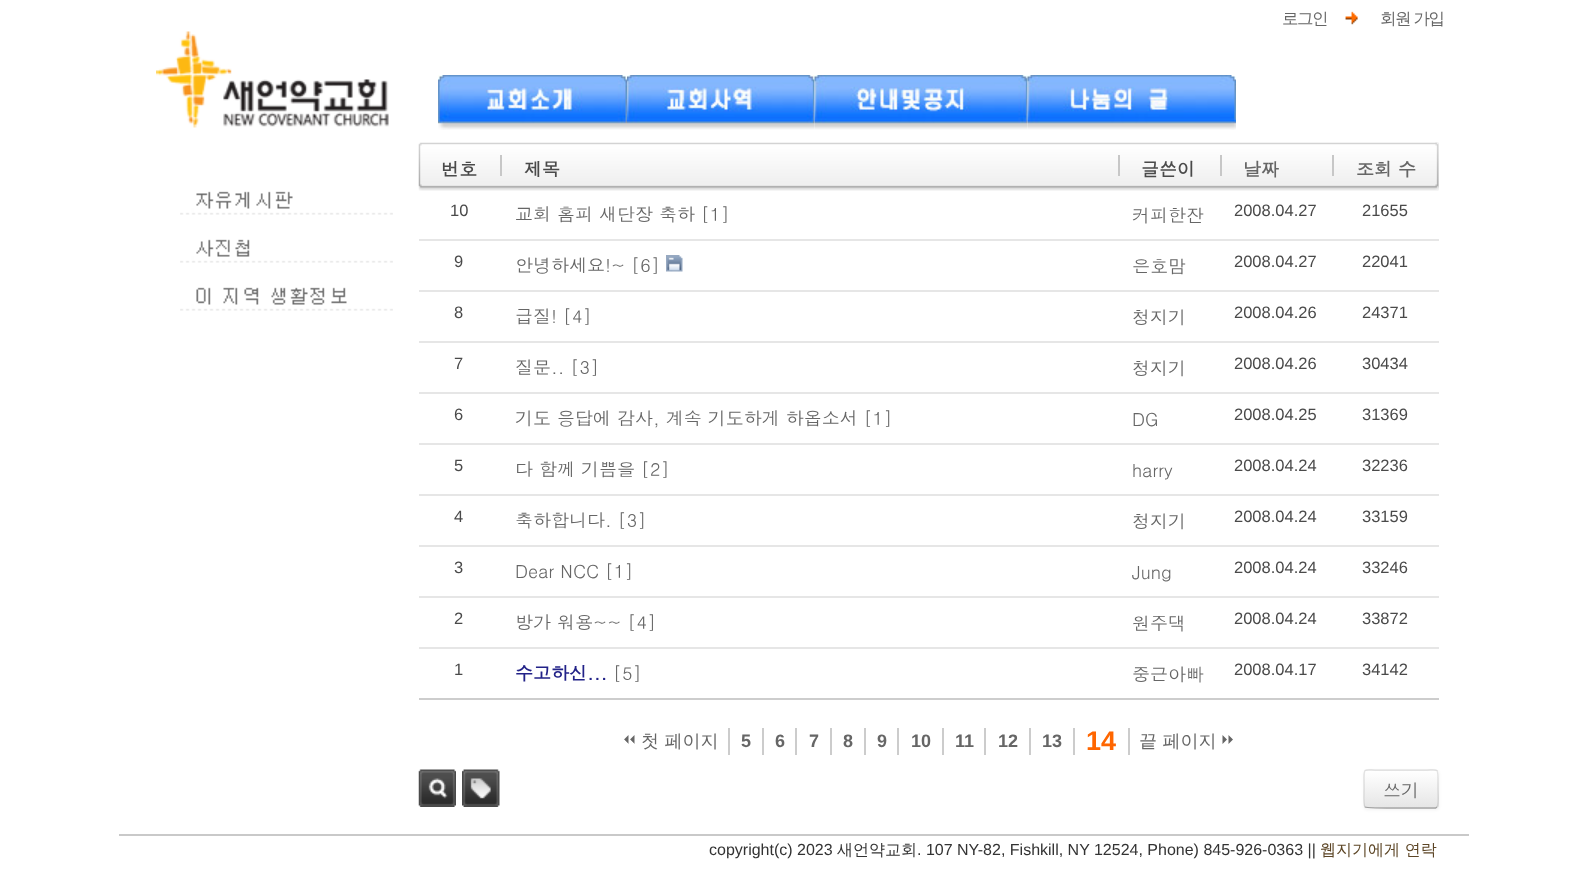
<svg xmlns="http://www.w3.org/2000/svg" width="1586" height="888">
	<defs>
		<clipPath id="clip1"><rect x="1364" y="770" width="75" height="39" rx="3" /></clipPath>
		<linearGradient id="g1" gradientUnits="userSpaceOnUse" x1="1401" y1="771" x2="1401" y2="807"><stop offset="0" stop-color="#FFFFFF" /><stop offset="1" stop-color="#E6E6E6" /></linearGradient>
	</defs>
	<rect width="100%" height="100%" fill="#FFFFFF" />
	<text x="1282" y="24" font-family="WenQuanYi Zen Hei" font-size="16.5" font-weight="500" letter-spacing="-1.5" fill="#666666">로그인</text>
	<image x="1345" y="11" width="13" height="14" href="assets/img1.png" />
	<text x="1380" y="24" font-family="WenQuanYi Zen Hei" font-size="16.5" font-weight="500" letter-spacing="-1.5" fill="#666666">회원 가입</text>
	<image x="156" y="31" width="233" height="97" href="assets/img2.png" />
	<image x="438" y="75" width="189" height="55" href="assets/img3.png" />
	<image x="627" y="75" width="188" height="55" href="assets/img4.png" />
	<image x="814" y="75" width="214" height="55" href="assets/img5.png" />
	<image x="1027" y="75" width="209" height="55" href="assets/img6.png" />
	<image x="180" y="191" width="213" height="24" href="assets/img7.png" />
	<image x="180" y="239" width="213" height="24" href="assets/img8.png" />
	<image x="180" y="287" width="213" height="24" href="assets/img9.png" />
	<image x="418" y="142" width="1021" height="49" href="assets/img10.png" />
	<image x="1435" y="142" width="4" height="48" href="assets/img11.png" />
	<rect x="419" y="698" width="1020" height="2" fill="#CDCDCD" />
	<text x="441" y="176" font-family="Dotum" font-size="18" font-weight="700" fill="#4A4A4A">번호</text>
	<rect x="500" y="155" width="2" height="21" fill="#C7C7C7" />
	<text x="524" y="176" font-family="Dotum" font-size="18" font-weight="700" fill="#4A4A4A">제목</text>
	<rect x="1118" y="155" width="2" height="21" fill="#C7C7C7" />
	<text x="1141" y="176" font-family="Dotum" font-size="18" font-weight="700" fill="#4A4A4A">글쓴이</text>
	<rect x="1220" y="155" width="2" height="21" fill="#C7C7C7" />
	<text x="1243" y="176" font-family="Dotum" font-size="18" font-weight="700" fill="#666666">날짜</text>
	<rect x="1332" y="155" width="2" height="21" fill="#C7C7C7" />
	<text x="1356" y="176" font-family="Dotum" font-size="18" font-weight="700" fill="#666666">조회 수</text>
	<rect x="419" y="239" width="1020" height="2" fill="#E6E6E6" />
	<text x="450" y="216" font-family="Liberation Sans" font-size="16.5" fill="#4A4A4A">10</text>
	<g font-family="Dotum" font-size="18" fill="#666666">
		<text x="515" y="221">교회 홈피 새단장 축하 [1]</text>
		<text x="1132" y="222">커피한잔</text>
	</g>
	<g font-family="Liberation Sans" font-size="16.5" fill="#4A4A4A">
		<text x="1234" y="216">2008.04.27</text>
		<text x="1362" y="216">21655</text>
	</g>
	<rect x="419" y="290" width="1020" height="2" fill="#E6E6E6" />
	<text x="454" y="267" font-family="Liberation Sans" font-size="16.5" fill="#4A4A4A">9</text>
	<text x="515" y="272" font-family="Dotum" font-size="18" fill="#666666">안녕하세요!~ [6]</text>
	<image x="666" y="255" width="17" height="17" href="assets/img12.png" />
	<text x="1132" y="273" font-family="Dotum" font-size="18" fill="#666666">은호맘</text>
	<g font-family="Liberation Sans" font-size="16.5" fill="#4A4A4A">
		<text x="1234" y="267">2008.04.27</text>
		<text x="1362" y="267">22041</text>
	</g>
	<rect x="419" y="341" width="1020" height="2" fill="#E6E6E6" />
	<text x="454" y="318" font-family="Liberation Sans" font-size="16.5" fill="#4A4A4A">8</text>
	<g font-family="Dotum" font-size="18" fill="#666666">
		<text x="515" y="323">급질! [4]</text>
		<text x="1132" y="324">청지기</text>
	</g>
	<g font-family="Liberation Sans" font-size="16.5" fill="#4A4A4A">
		<text x="1234" y="318">2008.04.26</text>
		<text x="1362" y="318">24371</text>
	</g>
	<rect x="419" y="392" width="1020" height="2" fill="#E6E6E6" />
	<text x="454" y="369" font-family="Liberation Sans" font-size="16.5" fill="#4A4A4A">7</text>
	<g font-family="Dotum" font-size="18" fill="#666666">
		<text x="515" y="374">질문.. [3]</text>
		<text x="1132" y="375">청지기</text>
	</g>
	<g font-family="Liberation Sans" font-size="16.5" fill="#4A4A4A">
		<text x="1234" y="369">2008.04.26</text>
		<text x="1362" y="369">30434</text>
	</g>
	<rect x="419" y="443" width="1020" height="2" fill="#E6E6E6" />
	<text x="454" y="420" font-family="Liberation Sans" font-size="16.5" fill="#4A4A4A">6</text>
	<g font-family="Dotum" font-size="18" fill="#666666">
		<text x="515" y="425">기도 응답에 감사, 계속 기도하게 하옵소서 [1]</text>
		<text x="1132" y="426">DG</text>
	</g>
	<g font-family="Liberation Sans" font-size="16.5" fill="#4A4A4A">
		<text x="1234" y="420">2008.04.25</text>
		<text x="1362" y="420">31369</text>
	</g>
	<rect x="419" y="494" width="1020" height="2" fill="#E6E6E6" />
	<text x="454" y="471" font-family="Liberation Sans" font-size="16.5" fill="#4A4A4A">5</text>
	<g font-family="Dotum" font-size="18" fill="#666666">
		<text x="515" y="476">다 함께 기쁨을 [2]</text>
		<text x="1132" y="477">harry</text>
	</g>
	<g font-family="Liberation Sans" font-size="16.5" fill="#4A4A4A">
		<text x="1234" y="471">2008.04.24</text>
		<text x="1362" y="471">32236</text>
	</g>
	<rect x="419" y="545" width="1020" height="2" fill="#E6E6E6" />
	<text x="454" y="522" font-family="Liberation Sans" font-size="16.5" fill="#4A4A4A">4</text>
	<g font-family="Dotum" font-size="18" fill="#666666">
		<text x="515" y="527">축하합니다. [3]</text>
		<text x="1132" y="528">청지기</text>
	</g>
	<g font-family="Liberation Sans" font-size="16.5" fill="#4A4A4A">
		<text x="1234" y="522">2008.04.24</text>
		<text x="1362" y="522">33159</text>
	</g>
	<rect x="419" y="596" width="1020" height="2" fill="#E6E6E6" />
	<text x="454" y="573" font-family="Liberation Sans" font-size="16.5" fill="#4A4A4A">3</text>
	<g font-family="Dotum" font-size="18" fill="#666666">
		<text x="515" y="578">Dear NCC [1]</text>
		<text x="1132" y="579">Jung</text>
	</g>
	<g font-family="Liberation Sans" font-size="16.5" fill="#4A4A4A">
		<text x="1234" y="573">2008.04.24</text>
		<text x="1362" y="573">33246</text>
	</g>
	<rect x="419" y="647" width="1020" height="2" fill="#E6E6E6" />
	<text x="454" y="624" font-family="Liberation Sans" font-size="16.5" fill="#4A4A4A">2</text>
	<g font-family="Dotum" font-size="18" fill="#666666">
		<text x="515" y="629">방가 워용~~ [4]</text>
		<text x="1132" y="630">원주댁</text>
	</g>
	<g font-family="Liberation Sans" font-size="16.5" fill="#4A4A4A">
		<text x="1234" y="624">2008.04.24</text>
		<text x="1362" y="624">33872</text>
		<text x="454" y="675">1</text>
	</g>
	<text x="515" y="680" font-family="Dotum" font-size="18" font-weight="700" fill="#222288">수고하신...</text>
	<g font-family="Dotum" font-size="18" fill="#666666">
		<text x="613" y="680">[5]</text>
		<text x="1132" y="681">중근아빠</text>
	</g>
	<g font-family="Liberation Sans" font-size="16.5" fill="#4A4A4A">
		<text x="1234" y="675">2008.04.17</text>
		<text x="1362" y="675">34142</text>
	</g>
	<path d="M628.5 735V744L624 739.5Z" fill="#666666" />
	<path d="M628.5 744H624V739.5Z" fill="#FFFFFF" />
	<path d="M634.5 735V744L630 739.5Z" fill="#666666" />
	<path d="M634.5 744H630V739.5Z" fill="#FFFFFF" />
	<text x="641" y="747" font-family="WenQuanYi Zen Hei" font-size="18" font-weight="500" fill="#666666">첫 페이지</text>
	<rect x="728" y="728" width="2" height="27" fill="#CCCCCC" />
	<text x="741" y="747" font-family="Liberation Sans" font-size="18" font-weight="700" fill="#666666">5</text>
	<rect x="762" y="728" width="2" height="27" fill="#CCCCCC" />
	<text x="775" y="747" font-family="Liberation Sans" font-size="18" font-weight="700" fill="#666666">6</text>
	<rect x="795" y="728" width="2" height="27" fill="#CCCCCC" />
	<text x="809" y="747" font-family="Liberation Sans" font-size="18" font-weight="700" fill="#666666">7</text>
	<rect x="830" y="728" width="2" height="27" fill="#CCCCCC" />
	<text x="843" y="747" font-family="Liberation Sans" font-size="18" font-weight="700" fill="#666666">8</text>
	<rect x="864" y="728" width="2" height="27" fill="#CCCCCC" />
	<text x="877" y="747" font-family="Liberation Sans" font-size="18" font-weight="700" fill="#666666">9</text>
	<rect x="897" y="728" width="2" height="27" fill="#CCCCCC" />
	<text x="911" y="747" font-family="Liberation Sans" font-size="18" font-weight="700" fill="#666666">10</text>
	<rect x="942" y="728" width="2" height="27" fill="#CCCCCC" />
	<text x="955" y="747" font-family="Liberation Sans" font-size="18" font-weight="700" fill="#666666">11</text>
	<rect x="984" y="728" width="2" height="27" fill="#CCCCCC" />
	<text x="998" y="747" font-family="Liberation Sans" font-size="18" font-weight="700" fill="#666666">12</text>
	<rect x="1029" y="728" width="2" height="27" fill="#CCCCCC" />
	<text x="1042" y="747" font-family="Liberation Sans" font-size="18" font-weight="700" fill="#666666">13</text>
	<rect x="1128" y="728" width="2" height="27" fill="#CCCCCC" />
	<rect x="1073" y="728" width="2" height="27" fill="#CCCCCC" />
	<text x="1086" y="750" font-family="Liberation Sans" font-size="27" font-weight="700" fill="#FF6600">14</text>
	<text x="1139" y="747" font-family="WenQuanYi Zen Hei" font-size="18" font-weight="500" fill="#666666">끝 페이지</text>
	<path d="M1222.5 744V735L1227 739.5ZM1228.5 744V735L1233 739.5Z" fill="#666666" />
	<image x="418" y="769" width="38" height="38" href="assets/img13.png" />
	<image x="462" y="769" width="38" height="38" href="assets/img14.png" />
	<rect x="1364" y="771" width="75" height="39" rx="3" fill="#000000" fill-opacity="0.05" filter="blur(1.5px)" />
	<rect x="1364" y="770" width="75" height="39" rx="3" fill="#F5F5F5" />
	<g clip-path="url(#clip1)">
		<rect x="1364" y="771" width="75" height="36" fill="url(#g1)" />
	</g>
	<path d="M1437 807L1435.5 808H1424C1417.5 808 1367 808.5 1365 807" fill="none" stroke="#A2A2A2" stroke-width="1.5" />
	<path d="M1365 807C1363 805.5 1364 792 1364 789V778C1364 767 1365 770 1378 770H1424C1437 770 1438 767 1438 778V789C1438 792 1439 805.5 1437 807" fill="none" stroke="#000000" stroke-opacity="0.1" stroke-width="1.5" />
	<text x="1383" y="797" font-family="Dotum" font-size="18" fill="#666666">쓰기</text>
	<rect x="119" y="834" width="1350" height="2" fill="#C9C9C9" />
	<text x="709" y="855" font-family="Liberation Sans" font-size="16" fill="#333333">copyright(c) 2023</text>
	<text x="837" y="855" font-family="WenQuanYi Zen Hei" font-size="16" font-weight="500" fill="#333333">새언약교회</text>
	<text x="917" y="855" font-family="Liberation Sans" font-size="16" fill="#333333">. 107 NY-82, Fishkill, NY 12524, Phone) 845-926-0363 ||</text>
	<text x="1320" y="855" font-family="WenQuanYi Zen Hei" font-size="16" font-weight="500" fill="#5C4525">웹지기에게 연락</text>
</svg>
